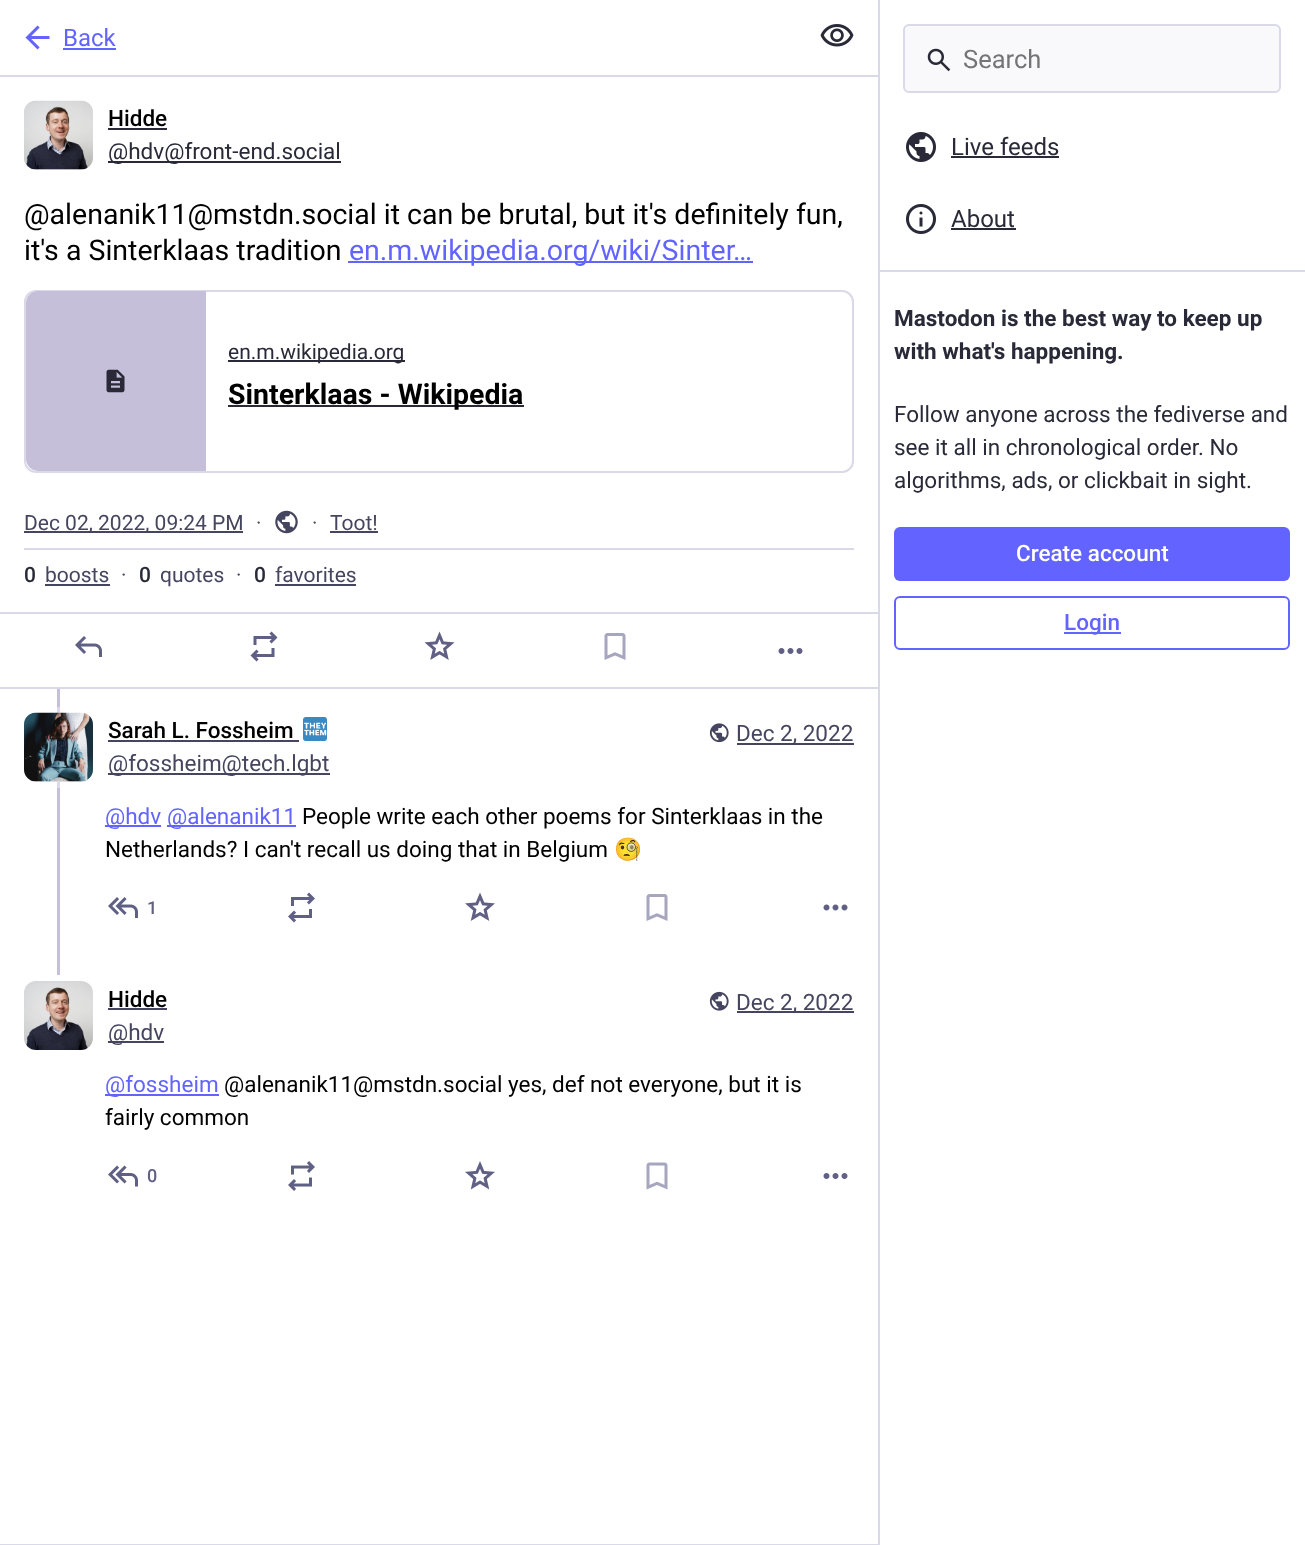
<svg xmlns="http://www.w3.org/2000/svg" width="1305" height="1545">
	<defs>
		<clipPath id="clip1"><rect x="26" y="291" width="826" height="180" rx="11" /></clipPath>
		<clipPath id="clip2"><rect x="140" y="561" width="10" height="27" /></clipPath>
	</defs>
	<rect width="100%" height="100%" fill="#FFFFFF" />
	<rect x="0" y="75" width="878" height="2" fill="#D9D9E8" />
	<image x="25" y="25" width="25" height="25" href="assets/img1.png" />
	<text x="63" y="46" font-family="Roboto" font-size="24" fill="#6364FF">Back</text>
	<rect x="63" y="48" width="53" height="2" fill="#6364FF" />
	<image x="820" y="24" width="34" height="23" href="assets/img2.png" />
	<rect x="0" y="1544" width="878" height="1" fill="#D9D9E8" />
	<rect x="24" y="101" width="69" height="69" rx="12" fill="#E8E6F0" />
	<image x="24" y="100" width="69" height="70" href="assets/img3.png" />
	<text x="108" y="126" font-family="Roboto" font-size="22.5" font-weight="500" fill="#000000">Hidde</text>
	<rect x="108" y="128" width="59" height="2" fill="#292938" />
	<rect x="108" y="161" width="233" height="2" fill="#292938" />
	<text x="108" y="159" font-family="Roboto" font-size="22.5" fill="#292938">@hdv@front-end.social</text>
	<g font-family="Roboto" font-size="28.5" fill="#000000">
		<text x="24" y="224">@alenanik11@mstdn.social it can be brutal, but it's definitely fun,</text>
		<text x="24" y="260">it's a Sinterklaas tradition</text>
	</g>
	<rect x="348" y="261" width="386" height="2" fill="#6364FF" />
	<g font-family="Roboto" font-size="28.5" fill="#6364FF">
		<text x="349" y="260">en.m.wikipedia.org/wiki/Sinter</text>
		<text x="733" y="260">…</text>
	</g>
	<rect x="734" y="261" width="19" height="2" fill="#6364FF" />
	<rect x="25" y="291" width="828" height="181" rx="11" fill="none" stroke="#D9D9E8" stroke-width="2" />
	<g clip-path="url(#clip1)">
		<path d="M38 291H206V471H38C31.5 471 26 465.5 26 459V303C26 296.5 31.5 291 38 291Z" fill="#C6BFD9" />
	</g>
	<image x="106" y="369" width="19" height="24" href="assets/img4.png" />
	<rect x="228" y="360" width="177" height="2" fill="#292938" />
	<text x="228" y="359" font-family="Roboto" font-size="21" fill="#292938">en.m.wikipedia.org</text>
	<rect x="228" y="405" width="296" height="2" fill="#292938" />
	<text x="228" y="404" font-family="Roboto" font-size="28.5" font-weight="700" fill="#000000">Sinterklaas - Wikipedia</text>
	<rect x="24" y="548" width="830" height="2" fill="#D9D9E8" />
	<rect x="24" y="531" width="219" height="2" fill="#45455F" />
	<g font-family="Roboto" font-size="21" fill="#45455F">
		<text x="24" y="530">Dec 02, 2022, 09:24 PM</text>
		<text x="256" y="530">·</text>
	</g>
	<image x="275" y="510" width="23" height="24" href="assets/img5.png" />
	<g font-family="Roboto" font-size="21" fill="#45455F">
		<text x="312" y="530">·</text>
		<text x="330" y="530">Toot!</text>
	</g>
	<rect x="330" y="531" width="48" height="2" fill="#45455F" />
	<text x="24" y="582" font-family="Roboto" font-size="21" font-weight="500" fill="#292938">0</text>
	<text x="45" y="582" font-family="Roboto" font-size="21" fill="#45455F">boosts</text>
	<rect x="45" y="584" width="65" height="2" fill="#45455F" />
	<text x="121" y="582" font-family="Roboto" font-size="21" fill="#45455F">·</text>
	<g clip-path="url(#clip2)">
		<text x="139" y="582" font-family="Roboto" font-size="21" font-weight="500" fill="#292938">0</text>
	</g>
	<g font-family="Roboto" font-size="21" fill="#45455F">
		<text x="160" y="582">quotes</text>
		<text x="236" y="582">·</text>
	</g>
	<text x="254" y="582" font-family="Roboto" font-size="21" font-weight="500" fill="#292938">0</text>
	<text x="275" y="582" font-family="Roboto" font-size="21" fill="#45455F">favorites</text>
	<rect x="275" y="584" width="81" height="2" fill="#45455F" />
	<rect x="0" y="612" width="878" height="2" fill="#D9D9E8" />
	<rect x="0" y="687" width="878" height="2" fill="#D9D9E8" />
	<image x="75" y="636" width="27" height="21" href="assets/img6.png" />
	<image x="250" y="631" width="28" height="31" href="assets/img7.png" />
	<image x="424" y="631" width="31" height="29" href="assets/img8.png" />
	<image x="604" y="633" width="22" height="27" href="assets/img9.png" />
	<image x="778" y="648" width="25" height="6" href="assets/img10.png" />
	<rect x="57" y="689" width="3" height="286" fill="#C6BFD9" />
	<rect x="57" y="707" width="3" height="81" fill="#DDD9E8" />
	<rect x="24" y="713" width="69" height="69" rx="12" fill="#E8E6F0" />
	<image x="24" y="712" width="69" height="70" href="assets/img11.png" />
	<text x="108" y="738" font-family="Roboto" font-size="22.5" font-weight="500" fill="#000000">Sarah L. Fossheim</text>
	<rect x="108" y="740" width="191" height="2" fill="#45455F" />
	<image x="303" y="717" width="24" height="24" href="assets/img12.png" />
	<rect x="108" y="773" width="222" height="2" fill="#45455F" />
	<text x="108" y="771" font-family="Roboto" font-size="22.5" fill="#45455F">@fossheim@tech.lgbt</text>
	<image x="709" y="723" width="20" height="20" href="assets/img13.png" />
	<rect x="737" y="743" width="117" height="2" fill="#45455F" />
	<text x="736" y="741" font-family="Roboto" font-size="22.5" fill="#45455F">Dec 2, 2022</text>
	<rect x="105" y="825" width="56" height="2" fill="#6364FF" />
	<text x="105" y="824" font-family="Roboto" font-size="22.5" fill="#6364FF">@hdv</text>
	<rect x="167" y="825" width="129" height="2" fill="#6364FF" />
	<text x="167" y="824" font-family="Roboto" font-size="22.5" fill="#6364FF">@alenanik11</text>
	<g font-family="Roboto" font-size="22.5" fill="#000000">
		<text x="302" y="824">People write each other poems for Sinterklaas in the</text>
		<text x="105" y="857">Netherlands? I can't recall us doing that in Belgium</text>
	</g>
	<text x="614" y="857" font-family="Noto Color Emoji" font-size="22.5" fill="#000000">🧐</text>
	<image x="108" y="897" width="30" height="21" href="assets/img14.png" />
	<text x="147" y="914" font-family="Roboto" font-size="18" font-weight="500" fill="#606085">1</text>
	<image x="288" y="892" width="27" height="31" href="assets/img15.png" />
	<image x="465" y="892" width="30" height="29" href="assets/img16.png" />
	<image x="646" y="894" width="22" height="27" href="assets/img9.png" />
	<image x="823" y="904" width="25" height="7" href="assets/img17.png" />
	<image x="24" y="981" width="69" height="69" href="assets/img18.png" />
	<text x="108" y="1007" font-family="Roboto" font-size="22.5" font-weight="500" fill="#000000">Hidde</text>
	<rect x="108" y="1008" width="59" height="2" fill="#45455F" />
	<rect x="108" y="1041" width="56" height="2" fill="#45455F" />
	<text x="108" y="1040" font-family="Roboto" font-size="22.5" fill="#45455F">@hdv</text>
	<image x="709" y="991" width="20" height="20" href="assets/img19.png" />
	<rect x="737" y="1011" width="117" height="2" fill="#45455F" />
	<text x="736" y="1010" font-family="Roboto" font-size="22.5" fill="#45455F">Dec 2, 2022</text>
	<rect x="105" y="1094" width="114" height="2" fill="#6364FF" />
	<text x="105" y="1092" font-family="Roboto" font-size="22.5" fill="#6364FF">@fossheim</text>
	<g font-family="Roboto" font-size="22.5" fill="#000000">
		<text x="224" y="1092">@alenanik11@mstdn.social yes, def not everyone, but it is</text>
		<text x="105" y="1125">fairly common</text>
	</g>
	<image x="108" y="1165" width="30" height="22" href="assets/img20.png" />
	<text x="147" y="1182" font-family="Roboto" font-size="18" font-weight="500" fill="#606085">0</text>
	<image x="288" y="1161" width="27" height="30" href="assets/img21.png" />
	<image x="465" y="1161" width="30" height="29" href="assets/img22.png" />
	<image x="646" y="1162" width="22" height="28" href="assets/img23.png" />
	<image x="823" y="1173" width="25" height="6" href="assets/img10.png" />
	<rect x="878" y="0" width="2" height="1545" fill="#D9D9E8" />
	<rect x="904" y="25" width="376" height="67" rx="5" fill="#F9F9FB" stroke="#D9D9E8" stroke-width="2" />
	<image x="927" y="48" width="24" height="24" href="assets/img24.png" />
	<text x="963" y="68" font-family="Roboto" font-size="25.5" fill="#757575">Search</text>
	<image x="906" y="132" width="30" height="30" href="assets/img25.png" />
	<text x="951" y="155" font-family="Roboto" font-size="24" fill="#292938">Live feeds</text>
	<rect x="951" y="156" width="108" height="2" fill="#292938" />
	<image x="906" y="204" width="30" height="30" href="assets/img26.png" />
	<text x="951" y="227" font-family="Roboto" font-size="24" fill="#292938">About</text>
	<rect x="951" y="228" width="65" height="2" fill="#292938" />
	<rect x="879" y="270" width="426" height="2" fill="#D9D9E8" />
	<g font-family="Roboto" font-size="22.5" font-weight="700" fill="#292938">
		<text x="894" y="326">Mastodon is the best way to keep up</text>
		<text x="894" y="359">with what's happening.</text>
	</g>
	<g font-family="Roboto" font-size="22.5" fill="#292938">
		<text x="894" y="422">Follow anyone across the fediverse and</text>
		<text x="894" y="455">see it all in chronological order. No</text>
		<text x="894" y="488">algorithms, ads, or clickbait in sight.</text>
	</g>
	<rect x="894" y="527" width="396" height="54" rx="6" fill="#6364FF" />
	<text x="1016" y="561" font-family="Roboto" font-size="22.5" font-weight="500" fill="#FFFFFF">Create account</text>
	<rect x="895" y="597" width="394" height="52" rx="5" fill="none" stroke="#6364FF" stroke-width="2" />
	<rect x="1064" y="632" width="57" height="2" fill="#6364FF" />
	<text x="1064" y="630" font-family="Roboto" font-size="22.5" font-weight="500" fill="#6364FF">Login</text>
</svg>
